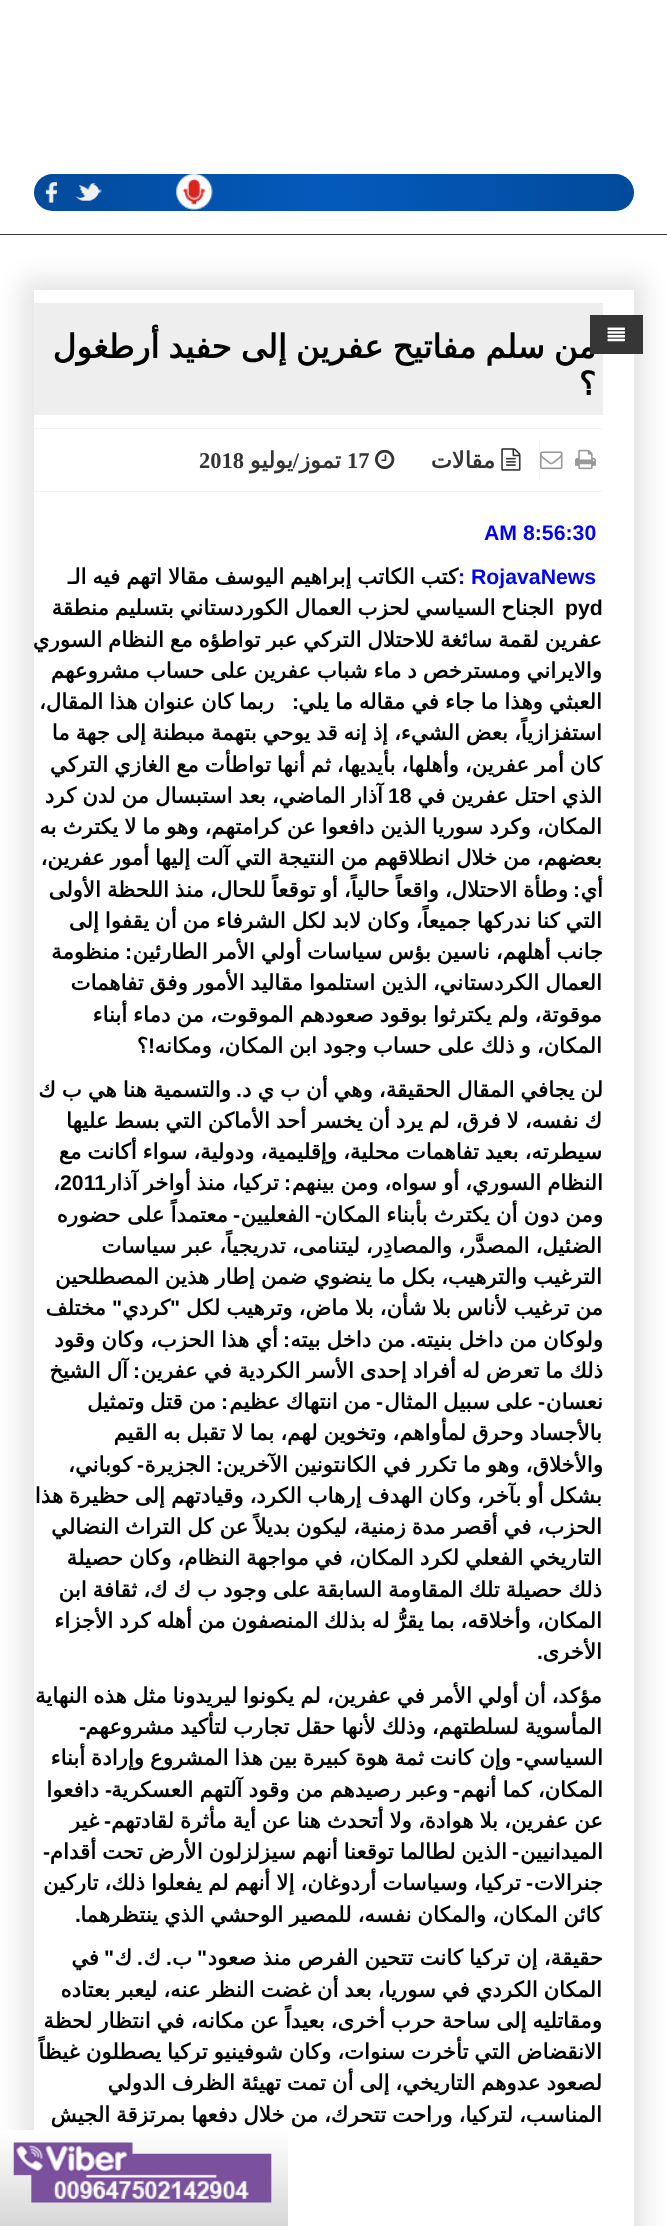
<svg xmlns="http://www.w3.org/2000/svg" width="667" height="2226">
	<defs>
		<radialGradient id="g1" gradientUnits="userSpaceOnUse" cx="334" cy="193" r="301"><stop offset="0" stop-color="#045ABC" /><stop offset="1" stop-color="#024A9B" /></radialGradient>
		<linearGradient id="g2" gradientUnits="userSpaceOnUse" x1="144" y1="2130" x2="144" y2="2226"><stop offset="0" stop-color="#FFFFFF" /><stop offset="1" stop-color="#D7D7D7" /></linearGradient>
	</defs>
	<rect width="100%" height="100%" fill="#FFFFFF" />
	<rect x="0" y="234" width="667" height="1" fill="#3D3B3B" />
	<rect x="34" y="174" width="600" height="37" rx="18.5" fill="url(#g1)" />
	<image x="176" y="174" width="37" height="36" href="assets/img1.png" />
	<image x="75" y="183" width="27" height="18" href="assets/img2.png" />
	<image x="45" y="182" width="12" height="21" href="assets/img3.png" />
	<rect x="21" y="278" width="625" height="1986" fill="#000000" fill-opacity="0.1" filter="blur(12.5px)" />
	<rect x="34" y="290" width="600" height="1936" fill="#FFFFFF" />
	<path d="M6 2130H282C285.5 2130 288 2132.5 288 2136V2226H0V2136C0 2132.5 2.5 2130 6 2130Z" fill="url(#g2)" />
	<image x="13" y="2142" width="259" height="61" href="assets/img4.png" />
	<rect x="34" y="303" width="569" height="112" fill="#EEEEEE" />
	<text x="596" y="358" word-spacing="-1.25" font-family="DejaVu Sans" font-size="32.5" font-weight="700" direction="rtl" fill="#000000">من سلم مفاتيح عفرين إلى حفيد أرطغول</text>
	<rect x="590" y="315" width="53" height="39" fill="#363636" />
	<image x="607" y="327" width="18" height="15" href="assets/img5.png" />
	<text x="596" y="395" font-family="DejaVu Sans" font-size="32.5" font-weight="700" direction="rtl" fill="#000000">؟</text>
	<rect x="34" y="428" width="569" height="1" fill="#F2F2F2" />
	<rect x="34" y="491" width="569" height="1" fill="#F2F2F2" />
	<image x="575" y="449" width="21" height="21" href="assets/img6.png" />
	<image x="540" y="451" width="23" height="19" href="assets/img7.png" />
	<rect x="539" y="441" width="1" height="38" fill="#F2F2F2" />
	<image x="501" y="448" width="20" height="23" href="assets/img8.png" />
	<text x="495" y="468" font-family="DejaVu Sans" font-size="22.5" font-weight="700" direction="rtl" fill="#333333">مقالات</text>
	<image x="375" y="449" width="20" height="21" href="assets/img9.png" />
	<text x="347" y="468" font-family="Liberation Serif" font-size="22.5" font-weight="700" fill="#333333">17</text>
	<text x="293" y="468" font-family="DejaVu Sans" font-size="22.5" font-weight="700" direction="rtl" fill="#333333">يوليو</text>
	<text x="299" y="468" font-family="Liberation Serif" font-size="22.5" font-weight="700" direction="rtl" fill="#333333">/</text>
	<text x="341" y="468" font-family="DejaVu Sans" font-size="22.5" font-weight="700" direction="rtl" fill="#333333">تموز</text>
	<text x="199" y="468" font-family="Liberation Serif" font-size="22.5" font-weight="700" fill="#333333">2018</text>
	<g font-family="Liberation Sans" font-size="21.25" font-weight="700" fill="#0000FF">
		<text x="484" y="540">AM 8:56:30</text>
		<text x="458" y="584">: RojavaNews</text>
	</g>
	<text x="458" y="584" word-spacing="-0.8" font-family="DejaVu Sans" font-size="21.25" font-weight="700" direction="rtl" fill="#000000">كتب الكاتب إبراهيم اليوسف مقالا اتهم فيه الـ</text>
	<text x="565" y="615" font-family="Liberation Sans" font-size="21.25" font-weight="700" fill="#000000">pyd</text>
	<g font-family="DejaVu Sans" font-size="21.25" font-weight="700" direction="rtl" fill="#000000">
		<text x="554" y="615" word-spacing="-0.75">الجناح السياسي لحزب العمال الكوردستاني بتسليم منطقة</text>
		<text x="602" y="647" word-spacing="-0.8">عفرين لقمة سائغة للاحتلال التركي عبر تواطؤه مع النظام السوري</text>
		<text x="602" y="678" word-spacing="-0.8">والايراني ومسترخص د ماء شباب عفرين على حساب مشروعهم</text>
		<text x="602" y="709" word-spacing="-0.8">العبثي وهذا ما جاء في مقاله ما يلي</text>
	</g>
	<text x="299" y="709" font-family="Liberation Sans" font-size="21.25" font-weight="700" direction="rtl" fill="#000000">:</text>
	<g font-family="DejaVu Sans" font-size="21.25" font-weight="700" direction="rtl" fill="#000000">
		<text x="274" y="709" word-spacing="-0.8">ربما كان عنوان هذا المقال،</text>
		<text x="602" y="740" word-spacing="-0.8">استفزازياً، بعض الشيء، إذ إنه قد يوحي بتهمة مبطنة إلى جهة ما</text>
		<text x="602" y="772" word-spacing="-0.8">كان أمر عفرين، وأهلها، بأيديها، ثم أنها تواطأت مع الغازي التركي</text>
		<text x="602" y="803" word-spacing="-0.8">الذي احتل عفرين في</text>
	</g>
	<text x="388" y="803" font-family="Liberation Sans" font-size="21.25" font-weight="700" fill="#000000">18</text>
	<g font-family="DejaVu Sans" font-size="21.25" font-weight="700" direction="rtl" fill="#000000">
		<text x="383" y="803" word-spacing="-0.75">آذار الماضي، بعد استبسال من لدن كرد</text>
		<text x="602" y="834" word-spacing="-0.8">المكان، وكرد سوريا الذين دافعوا عن كرامتهم، وهو ما لا يكترث به</text>
		<text x="602" y="865" word-spacing="-0.8">بعضهم، من خلال انطلاقهم من النتيجة التي آلت إليها أمور عفرين،</text>
		<text x="603" y="897">أي</text>
	</g>
	<text x="580" y="897" font-family="Liberation Sans" font-size="21.25" font-weight="700" direction="rtl" fill="#000000">:</text>
	<g font-family="DejaVu Sans" font-size="21.25" font-weight="700" direction="rtl" fill="#000000">
		<text x="568" y="897" word-spacing="-0.75">وطأة الاحتلال، واقعاً حالياً، أو توقعاً للحال، منذ اللحظة الأولى</text>
		<text x="602" y="928" word-spacing="-0.8">التي كنا ندركها جميعاً، وكان لابد لكل الشرفاء من أن يقفوا إلى</text>
		<text x="603" y="959" word-spacing="-0.75">جانب أهلهم، ناسين بؤس سياسات أولي الأمر الطارئين</text>
	</g>
	<text x="132" y="959" font-family="Liberation Sans" font-size="21.25" font-weight="700" direction="rtl" fill="#000000">:</text>
	<g font-family="DejaVu Sans" font-size="21.25" font-weight="700" direction="rtl" fill="#000000">
		<text x="120" y="959">منظومة</text>
		<text x="602" y="990" word-spacing="-0.8">العمال الكردستاني، الذين استلموا مقاليد الأمور وفق تفاهمات</text>
		<text x="602" y="1022" word-spacing="-0.8">موقوتة، ولم يكترثوا بوقود صعودهم الموقوت، من دماء أبناء</text>
		<text x="602" y="1053" word-spacing="-0.8">المكان، و ذلك على حساب وجود ابن المكان، ومكانه</text>
	</g>
	<text x="155" y="1053" font-family="Liberation Sans" font-size="21.25" font-weight="700" direction="rtl" fill="#000000">!</text>
	<g font-family="DejaVu Sans" font-size="21.25" font-weight="700" direction="rtl" fill="#000000">
		<text x="148" y="1053">؟</text>
		<text x="603" y="1097" word-spacing="-0.75">لن يجافي المقال الحقيقة، وهي أن ب ي د</text>
	</g>
	<text x="242" y="1097" font-family="Liberation Sans" font-size="21.25" font-weight="700" direction="rtl" fill="#000000">.</text>
	<g font-family="DejaVu Sans" font-size="21.25" font-weight="700" direction="rtl" fill="#000000">
		<text x="231" y="1097" word-spacing="-0.75">والتسمية هنا هي ب ك</text>
		<text x="602" y="1128" word-spacing="-0.8">ك نفسه، لا فرق، لم يرد أن يخسر أحد الأماكن التي بسط عليها</text>
		<text x="602" y="1159" word-spacing="-0.8">سيطرته، بعيد تفاهمات محلية، وإقليمية، ودولية، سواء أكانت مع</text>
		<text x="603" y="1190" word-spacing="-0.75">النظام السوري، أو سواه، ومن بينهم</text>
	</g>
	<text x="291" y="1190" font-family="Liberation Sans" font-size="21.25" font-weight="700" direction="rtl" fill="#000000">:</text>
	<text x="60" y="1190" font-family="Liberation Sans" font-size="21.25" font-weight="700" fill="#000000">2011</text>
	<text x="279" y="1190" word-spacing="-0.75" font-family="DejaVu Sans" font-size="21.25" font-weight="700" direction="rtl" fill="#000000">تركيا، منذ أواخر آذار</text>
	<text x="53" y="1190" font-family="DejaVu Sans" font-size="21.25" font-weight="700" fill="#000000">،</text>
	<text x="603" y="1222" word-spacing="-0.5" font-family="DejaVu Sans" font-size="21.25" font-weight="700" direction="rtl" fill="#000000">ومن دون أن يكترث بأبناء المكان</text>
	<text x="322" y="1222" font-family="Liberation Sans" font-size="21.25" font-weight="700" direction="rtl" fill="#000000">-</text>
	<text x="310" y="1222" font-family="DejaVu Sans" font-size="21.25" font-weight="700" direction="rtl" fill="#000000">الفعليين</text>
	<text x="240" y="1222" font-family="Liberation Sans" font-size="21.25" font-weight="700" direction="rtl" fill="#000000">-</text>
	<g font-family="DejaVu Sans" font-size="21.25" font-weight="700" direction="rtl" fill="#000000">
		<text x="228" y="1222" word-spacing="-0.5">معتمداً على حضوره</text>
		<text x="602" y="1253" word-spacing="-0.8">الضئيل، المصدَّر، والمصادِر، ليتنامى، تدريجياً، عبر سياسات</text>
		<text x="602" y="1284" word-spacing="-0.8">الترغيب والترهيب، بكل ما ينضوي ضمن إطار هذين المصطلحين</text>
		<text x="603" y="1315" word-spacing="-0.75">من ترغيب لأناس بلا شأن، بلا ماض، وترهيب لكل</text>
	</g>
	<text x="180" y="1315" font-family="Liberation Sans" font-size="21.25" font-weight="700" direction="rtl" fill="#000000">"</text>
	<text x="170" y="1315" font-family="DejaVu Sans" font-size="21.25" font-weight="700" direction="rtl" fill="#000000">كردي</text>
	<text x="122" y="1315" font-family="Liberation Sans" font-size="21.25" font-weight="700" direction="rtl" fill="#000000">"</text>
	<g font-family="DejaVu Sans" font-size="21.25" font-weight="700" direction="rtl" fill="#000000">
		<text x="106" y="1315">مختلف</text>
		<text x="603" y="1347" word-spacing="-0.5">ولوكان من داخل بنيته</text>
	</g>
	<text x="416" y="1347" font-family="Liberation Sans" font-size="21.25" font-weight="700" direction="rtl" fill="#000000">.</text>
	<text x="405" y="1347" word-spacing="-0.5" font-family="DejaVu Sans" font-size="21.25" font-weight="700" direction="rtl" fill="#000000">من داخل بيته</text>
	<text x="290" y="1347" font-family="Liberation Sans" font-size="21.25" font-weight="700" direction="rtl" fill="#000000">:</text>
	<g font-family="DejaVu Sans" font-size="21.25" font-weight="700" direction="rtl" fill="#000000">
		<text x="278" y="1347" word-spacing="-0.5">أي هذا الحزب، وكان وقود</text>
		<text x="603" y="1378" word-spacing="-0.75">ذلك ما تعرض له أفراد إحدى الأسر الكردية في عفرين</text>
	</g>
	<text x="140" y="1378" font-family="Liberation Sans" font-size="21.25" font-weight="700" direction="rtl" fill="#000000">:</text>
	<g font-family="DejaVu Sans" font-size="21.25" font-weight="700" direction="rtl" fill="#000000">
		<text x="128" y="1378" word-spacing="-0.75">آل الشيخ</text>
		<text x="603" y="1409">نعسان</text>
	</g>
	<text x="545" y="1409" font-family="Liberation Sans" font-size="21.25" font-weight="700" direction="rtl" fill="#000000">-</text>
	<text x="533" y="1409" word-spacing="-1" font-family="DejaVu Sans" font-size="21.25" font-weight="700" direction="rtl" fill="#000000">على سبيل المثال</text>
	<text x="383" y="1409" font-family="Liberation Sans" font-size="21.25" font-weight="700" direction="rtl" fill="#000000">-</text>
	<text x="371" y="1409" word-spacing="-1" font-family="DejaVu Sans" font-size="21.25" font-weight="700" direction="rtl" fill="#000000">من انتهاك عظيم</text>
	<text x="228" y="1409" font-family="Liberation Sans" font-size="21.25" font-weight="700" direction="rtl" fill="#000000">:</text>
	<g font-family="DejaVu Sans" font-size="21.25" font-weight="700" direction="rtl" fill="#000000">
		<text x="216" y="1409" word-spacing="-1">من قتل وتمثيل</text>
		<text x="602" y="1440" word-spacing="-0.8">بالأجساد وحرق لمأواهم، وتخوين لهم، بما لا تقبل به القيم</text>
		<text x="603" y="1472" word-spacing="-0.5">والأخلاق، وهو ما تكرر في الكانتونين الآخرين</text>
	</g>
	<text x="223" y="1472" font-family="Liberation Sans" font-size="21.25" font-weight="700" direction="rtl" fill="#000000">:</text>
	<text x="211" y="1472" font-family="DejaVu Sans" font-size="21.25" font-weight="700" direction="rtl" fill="#000000">الجزيرة</text>
	<text x="144" y="1472" font-family="Liberation Sans" font-size="21.25" font-weight="700" direction="rtl" fill="#000000">-</text>
	<g font-family="DejaVu Sans" font-size="21.25" font-weight="700" direction="rtl" fill="#000000">
		<text x="132" y="1472">كوباني،</text>
		<text x="602" y="1503" word-spacing="-0.8">بشكل أو بآخر، وكان الهدف إرهاب الكرد، وقيادتهم إلى حظيرة هذا</text>
		<text x="602" y="1534" word-spacing="-0.8">الحزب، في أقصر مدة زمنية، ليكون بديلاً عن كل التراث النضالي</text>
		<text x="602" y="1565" word-spacing="-0.8">التاريخي الفعلي لكرد المكان، في مواجهة النظام، وكان حصيلة</text>
		<text x="602" y="1597">ذلك</text>
		<text x="562" y="1597" word-spacing="-0.8">حصيلة تلك المقاومة السابقة على وجود ب ك ك، ثقافة ابن</text>
		<text x="602" y="1628" word-spacing="-0.8">المكان، وأخلاقه، بما يقرُّ له بذلك المنصفون من أهله كرد الأجزاء</text>
		<text x="602" y="1659">الأخرى</text>
	</g>
	<text x="543" y="1659" font-family="Liberation Sans" font-size="21.25" font-weight="700" direction="rtl" fill="#000000">.</text>
	<g font-family="DejaVu Sans" font-size="21.25" font-weight="700" direction="rtl" fill="#000000">
		<text x="602" y="1703" word-spacing="-0.8">مؤكد، أن أولي الأمر في عفرين، لم يكونوا ليريدونا مثل هذه النهاية</text>
		<text x="602" y="1734" word-spacing="-0.8">المأسوية لسلطتهم، وذلك لأنها حقل تجارب لتأكيد مشروعهم</text>
	</g>
	<text x="86" y="1734" font-family="Liberation Sans" font-size="21.25" font-weight="700" direction="rtl" fill="#000000">-</text>
	<text x="603" y="1765" font-family="DejaVu Sans" font-size="21.25" font-weight="700" direction="rtl" fill="#000000">السياسي</text>
	<text x="523" y="1765" font-family="Liberation Sans" font-size="21.25" font-weight="700" direction="rtl" fill="#000000">-</text>
	<g font-family="DejaVu Sans" font-size="21.25" font-weight="700" direction="rtl" fill="#000000">
		<text x="511" y="1765" word-spacing="-0.75">وإن كانت ثمة هوة كبيرة بين هذا المشروع وإرادة أبناء</text>
		<text x="603" y="1797" word-spacing="-0.5">المكان، كما أنهم</text>
	</g>
	<text x="460" y="1797" font-family="Liberation Sans" font-size="21.25" font-weight="700" direction="rtl" fill="#000000">-</text>
	<text x="448" y="1797" word-spacing="-0.5" font-family="DejaVu Sans" font-size="21.25" font-weight="700" direction="rtl" fill="#000000">وعبر رصيدهم من وقود آلتهم العسكرية</text>
	<text x="112" y="1797" font-family="Liberation Sans" font-size="21.25" font-weight="700" direction="rtl" fill="#000000">-</text>
	<g font-family="DejaVu Sans" font-size="21.25" font-weight="700" direction="rtl" fill="#000000">
		<text x="99" y="1797">دافعوا</text>
		<text x="603" y="1828" word-spacing="-0.75">عن عفرين، بلا هوادة، ولا أتحدث هنا عن أية مأثرة لقادتهم</text>
	</g>
	<text x="111" y="1828" font-family="Liberation Sans" font-size="21.25" font-weight="700" direction="rtl" fill="#000000">-</text>
	<g font-family="DejaVu Sans" font-size="21.25" font-weight="700" direction="rtl" fill="#000000">
		<text x="99" y="1828">غير</text>
		<text x="603" y="1859">الميدانيين</text>
	</g>
	<text x="519" y="1859" font-family="Liberation Sans" font-size="21.25" font-weight="700" direction="rtl" fill="#000000">-</text>
	<text x="507" y="1859" word-spacing="-0.75" font-family="DejaVu Sans" font-size="21.25" font-weight="700" direction="rtl" fill="#000000">الذين لطالما توقعنا أنهم سيزلزلون الأرض تحت أقدام</text>
	<text x="50" y="1859" font-family="Liberation Sans" font-size="21.25" font-weight="700" direction="rtl" fill="#000000">-</text>
	<g font-family="DejaVu Sans" font-size="21.25" font-weight="700" direction="rtl" fill="#000000">
		<text x="603" y="1890">جنرالات</text>
		<text x="521" y="1890" word-spacing="-0.75">تركيا، وسياسات أردوغان، إلا أنهم لم يفعلوا ذلك، تاركين</text>
	</g>
	<text x="533" y="1890" font-family="Liberation Sans" font-size="21.25" font-weight="700" direction="rtl" fill="#000000">-</text>
	<text x="602" y="1922" word-spacing="-0.8" font-family="DejaVu Sans" font-size="21.25" font-weight="700" direction="rtl" fill="#000000">كائن المكان، والمكان نفسه، للمصير الوحشي الذي ينتظرهما</text>
	<text x="81" y="1922" font-family="Liberation Sans" font-size="21.25" font-weight="700" direction="rtl" fill="#000000">.</text>
	<text x="603" y="1965" word-spacing="-0.5" font-family="DejaVu Sans" font-size="21.25" font-weight="700" direction="rtl" fill="#000000">حقيقة، إن تركيا كانت تتحين الفرص منذ صعود</text>
	<text x="207" y="1965" font-family="Liberation Sans" font-size="21.25" font-weight="700" direction="rtl" fill="#000000">"</text>
	<text x="192" y="1965" font-family="DejaVu Sans" font-size="21.25" font-weight="700" direction="rtl" fill="#000000">ب</text>
	<text x="172" y="1965" font-family="Liberation Sans" font-size="21.25" font-weight="700" direction="rtl" fill="#000000">.</text>
	<text x="161" y="1965" font-family="DejaVu Sans" font-size="21.25" font-weight="700" direction="rtl" fill="#000000">ك</text>
	<text x="143" y="1965" font-family="Liberation Sans" font-size="21.25" font-weight="700" direction="rtl" fill="#000000">.</text>
	<text x="132" y="1965" font-family="DejaVu Sans" font-size="21.25" font-weight="700" direction="rtl" fill="#000000">ك</text>
	<text x="114" y="1965" font-family="Liberation Sans" font-size="21.25" font-weight="700" direction="rtl" fill="#000000">"</text>
	<g font-family="DejaVu Sans" font-size="21.25" font-weight="700" direction="rtl" fill="#000000">
		<text x="99" y="1965">في</text>
		<text x="602" y="1997" word-spacing="-0.8">المكان الكردي في سوريا، بعد أن غضت النظر عنه، ليعبر بعتاده</text>
		<text x="602" y="2028" word-spacing="-0.8">ومقاتليه إلى ساحة حرب أخرى، بعيداً عن مكانه، في انتظار لحظة</text>
		<text x="602" y="2059" word-spacing="-0.8">الانقضاض التي تأخرت سنوات، وكان شوفينيو تركيا يصطلون غيظاً</text>
		<text x="602" y="2090" word-spacing="-0.8">لصعود عدوهم التاريخي، إلى أن تمت تهيئة الظرف الدولي</text>
		<text x="602" y="2122" word-spacing="-0.8">المناسب، لتركيا، وراحت تتحرك، من خلال دفعها بمرتزقة الجيش</text>
	</g>
</svg>
